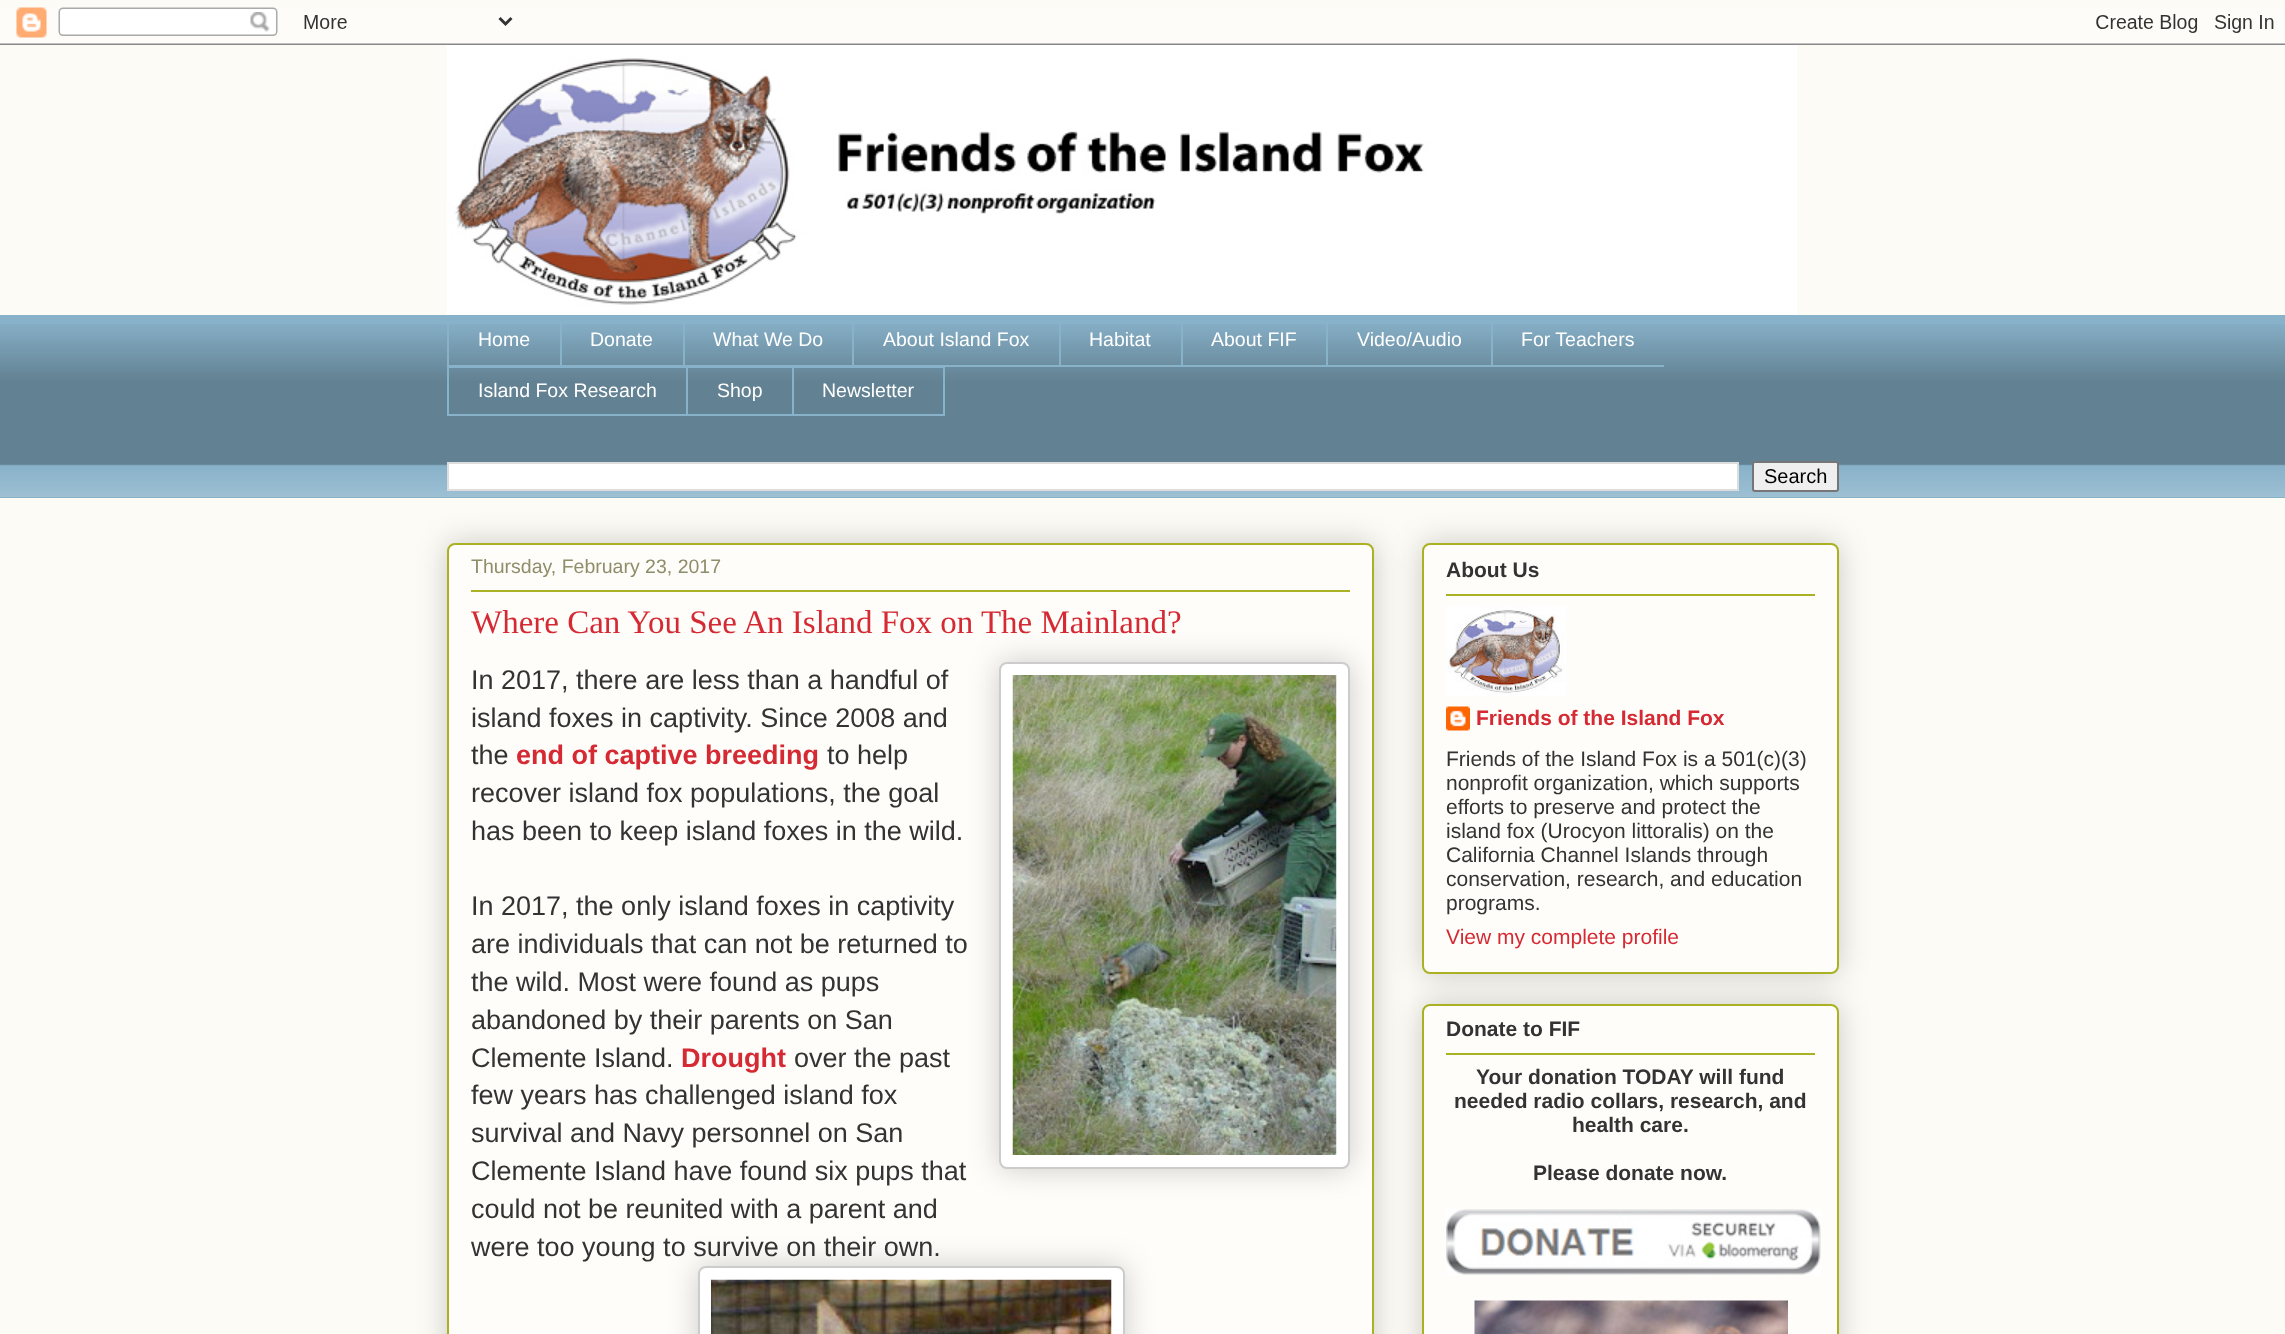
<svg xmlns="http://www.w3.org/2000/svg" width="2285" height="1334">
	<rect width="100%" height="100%" fill="#FCFBF5" />
	<image x="0" y="7" width="2285" height="38" href="assets/img1.png" />
	<image x="447" y="45" width="1350" height="270" href="assets/img2.png" />
	<rect x="0" y="315" width="2285" height="183" fill="#88B2CA" />
	<image x="0" y="324" width="2285" height="173" href="assets/img3.png" />
	<rect x="447" y="365" width="405" height="1" fill="#88B2CA" />
	<rect x="447" y="324" width="2" height="42" fill="#88B2CA" />
	<text x="478" y="346" font-family="Liberation Sans" font-size="19.5" fill="#FFFFFF">Home</text>
	<rect x="560" y="324" width="2" height="42" fill="#88B2CA" />
	<text x="590" y="346" font-family="Liberation Sans" font-size="19.5" fill="#FFFFFF">Donate</text>
	<rect x="683" y="324" width="2" height="42" fill="#88B2CA" />
	<text x="713" y="346" font-family="Liberation Sans" font-size="19.5" fill="#FFFFFF">What We Do</text>
	<rect x="852" y="365" width="812" height="2" fill="#88B2CA" />
	<rect x="852" y="324" width="2" height="42" fill="#88B2CA" />
	<text x="883" y="346" font-family="Liberation Sans" font-size="19.5" fill="#FFFFFF">About Island Fox</text>
	<rect x="1059" y="324" width="2" height="42" fill="#88B2CA" />
	<text x="1089" y="346" font-family="Liberation Sans" font-size="19.5" fill="#FFFFFF">Habitat</text>
	<rect x="1181" y="324" width="2" height="42" fill="#88B2CA" />
	<text x="1211" y="346" font-family="Liberation Sans" font-size="19.5" fill="#FFFFFF">About FIF</text>
	<rect x="1326" y="324" width="2" height="42" fill="#88B2CA" />
	<text x="1357" y="346" font-family="Liberation Sans" font-size="19.5" fill="#FFFFFF">Video/Audio</text>
	<rect x="1491" y="324" width="2" height="42" fill="#88B2CA" />
	<text x="1521" y="346" font-family="Liberation Sans" font-size="19.5" fill="#FFFFFF">For Teachers</text>
	<rect x="447" y="366" width="345" height="2" fill="#88B2CA" />
	<rect x="447" y="414" width="345" height="2" fill="#88B2CA" />
	<rect x="447" y="366" width="2" height="50" fill="#88B2CA" />
	<text x="478" y="397" font-family="Liberation Sans" font-size="19.5" fill="#FFFFFF">Island Fox Research</text>
	<rect x="686" y="366" width="2" height="50" fill="#88B2CA" />
	<text x="717" y="397" font-family="Liberation Sans" font-size="19.5" fill="#FFFFFF">Shop</text>
	<rect x="793" y="367" width="151" height="48" fill="none" stroke="#88B2CA" stroke-width="2" />
	<text x="822" y="397" font-family="Liberation Sans" font-size="19.5" fill="#FFFFFF">Newsletter</text>
	<rect x="448" y="463" width="1290" height="27" fill="#FFFFFF" stroke="#DDDDDD" stroke-width="2" />
	<rect x="1753" y="462" width="85" height="29" rx="2" fill="#EFEFEF" stroke="#767676" stroke-width="2" />
	<text x="1764" y="483" font-family="Liberation Sans" font-size="20" fill="#000000">Search</text>
	<rect x="447" y="543" width="927" height="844" rx="8" fill="#000000" fill-opacity="0.2" filter="blur(15px)" />
	<rect x="448" y="544" width="925" height="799" rx="7" fill="#FEFDFA" stroke="#AAB123" stroke-width="2" />
	<text x="471" y="573" font-family="Liberation Sans" font-size="19.5" fill="#908D6A">Thursday, February 23, 2017</text>
	<rect x="471" y="590" width="879" height="2" fill="#AAB123" />
	<text x="471" y="633" font-family="Liberation Serif" font-size="33" fill="#D52A33">Where Can You See An Island Fox on The Mainland?</text>
	<text x="471" y="689" font-family="Liberation Sans" font-size="27" fill="#333333">In 2017, there are less than a handful of</text>
	<rect x="999" y="662" width="351" height="507" rx="8" fill="#000000" fill-opacity="0.2" filter="blur(15px)" />
	<rect x="1000" y="663" width="349" height="505" rx="7" fill="#FFFFFF" stroke="#CCCCCC" stroke-width="2" />
	<image x="1012" y="675" width="325" height="480" href="assets/img4.png" />
	<g font-family="Liberation Sans" font-size="27" fill="#333333">
		<text x="471" y="727">island foxes in captivity. Since 2008 and</text>
		<text x="471" y="764">the</text>
	</g>
	<text x="516" y="764" font-family="Liberation Sans" font-size="27" font-weight="700" fill="#D52A33">end of captive breeding</text>
	<g font-family="Liberation Sans" font-size="27" fill="#333333">
		<text x="827" y="764">to help</text>
		<text x="471" y="802">recover island fox populations, the goal</text>
		<text x="471" y="840">has been to keep island foxes in the wild.</text>
		<text x="471" y="915">In 2017, the only island foxes in captivity</text>
		<text x="471" y="953">are individuals that can not be returned to</text>
		<text x="471" y="991">the wild. Most were found as pups</text>
		<text x="471" y="1029">abandoned by their parents on San</text>
		<text x="471" y="1067">Clemente Island.</text>
	</g>
	<text x="681" y="1067" font-family="Liberation Sans" font-size="27" font-weight="700" fill="#D52A33">Drought</text>
	<g font-family="Liberation Sans" font-size="27" fill="#333333">
		<text x="794" y="1067">over the past</text>
		<text x="471" y="1104">few years has challenged island fox</text>
		<text x="471" y="1142">survival and Navy personnel on San</text>
		<text x="471" y="1180">Clemente Island have found six pups that</text>
		<text x="471" y="1218">could not be reunited with a parent and</text>
	</g>
	<rect x="698" y="1266" width="427" height="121" rx="8" fill="#000000" fill-opacity="0.2" filter="blur(15px)" />
	<rect x="699" y="1267" width="425" height="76" rx="7" fill="#FFFFFF" stroke="#CCCCCC" stroke-width="2" />
	<image x="711" y="1279" width="401" height="55" href="assets/img5.png" />
	<text x="471" y="1256" font-family="Liberation Sans" font-size="27" fill="#333333">were too young to survive on their own.</text>
	<rect x="1422" y="543" width="417" height="431" rx="8" fill="#000000" fill-opacity="0.2" filter="blur(15px)" />
	<rect x="1423" y="544" width="415" height="429" rx="7" fill="#FEFDFA" stroke="#AAB123" stroke-width="2" />
	<text x="1446" y="577" font-family="Liberation Sans" font-size="21" font-weight="700" fill="#333333">About Us</text>
	<rect x="1446" y="594" width="369" height="2" fill="#AAB123" />
	<image x="1446" y="606" width="120" height="90" href="assets/img6.png" />
	<image x="1446" y="706" width="24" height="25" href="assets/img7.png" />
	<text x="1476" y="725" font-family="Liberation Sans" font-size="21" font-weight="700" fill="#D52A33">Friends of the Island Fox</text>
	<g font-family="Liberation Sans" font-size="21" fill="#333333">
		<text x="1446" y="766">Friends of the Island Fox is a 501(c)(3)</text>
		<text x="1446" y="790">nonprofit organization, which supports</text>
		<text x="1446" y="814">efforts to preserve and protect the</text>
		<text x="1446" y="838">island fox (Urocyon littoralis) on the</text>
		<text x="1446" y="862">California Channel Islands through</text>
		<text x="1446" y="886">conservation, research, and education</text>
		<text x="1446" y="910">programs.</text>
	</g>
	<text x="1446" y="944" font-family="Liberation Sans" font-size="21" fill="#D52A33">View my complete profile</text>
	<rect x="1422" y="1004" width="417" height="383" rx="8" fill="#000000" fill-opacity="0.2" filter="blur(15px)" />
	<rect x="1423" y="1005" width="415" height="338" rx="7" fill="#FEFDFA" stroke="#AAB123" stroke-width="2" />
	<text x="1446" y="1036" font-family="Liberation Sans" font-size="21" font-weight="700" fill="#333333">Donate to FIF</text>
	<rect x="1446" y="1053" width="369" height="2" fill="#AAB123" />
	<g font-family="Liberation Sans" font-size="21" font-weight="700" fill="#333333">
		<text x="1476" y="1084">Your donation TODAY will fund</text>
		<text x="1454" y="1108">needed radio collars, research, and</text>
		<text x="1572" y="1132">health care.</text>
		<text x="1533" y="1180">Please donate now.</text>
	</g>
	<image x="1446" y="1209" width="375" height="66" href="assets/img8.png" />
	<image x="1474" y="1300" width="314" height="34" href="assets/img9.png" />
</svg>
